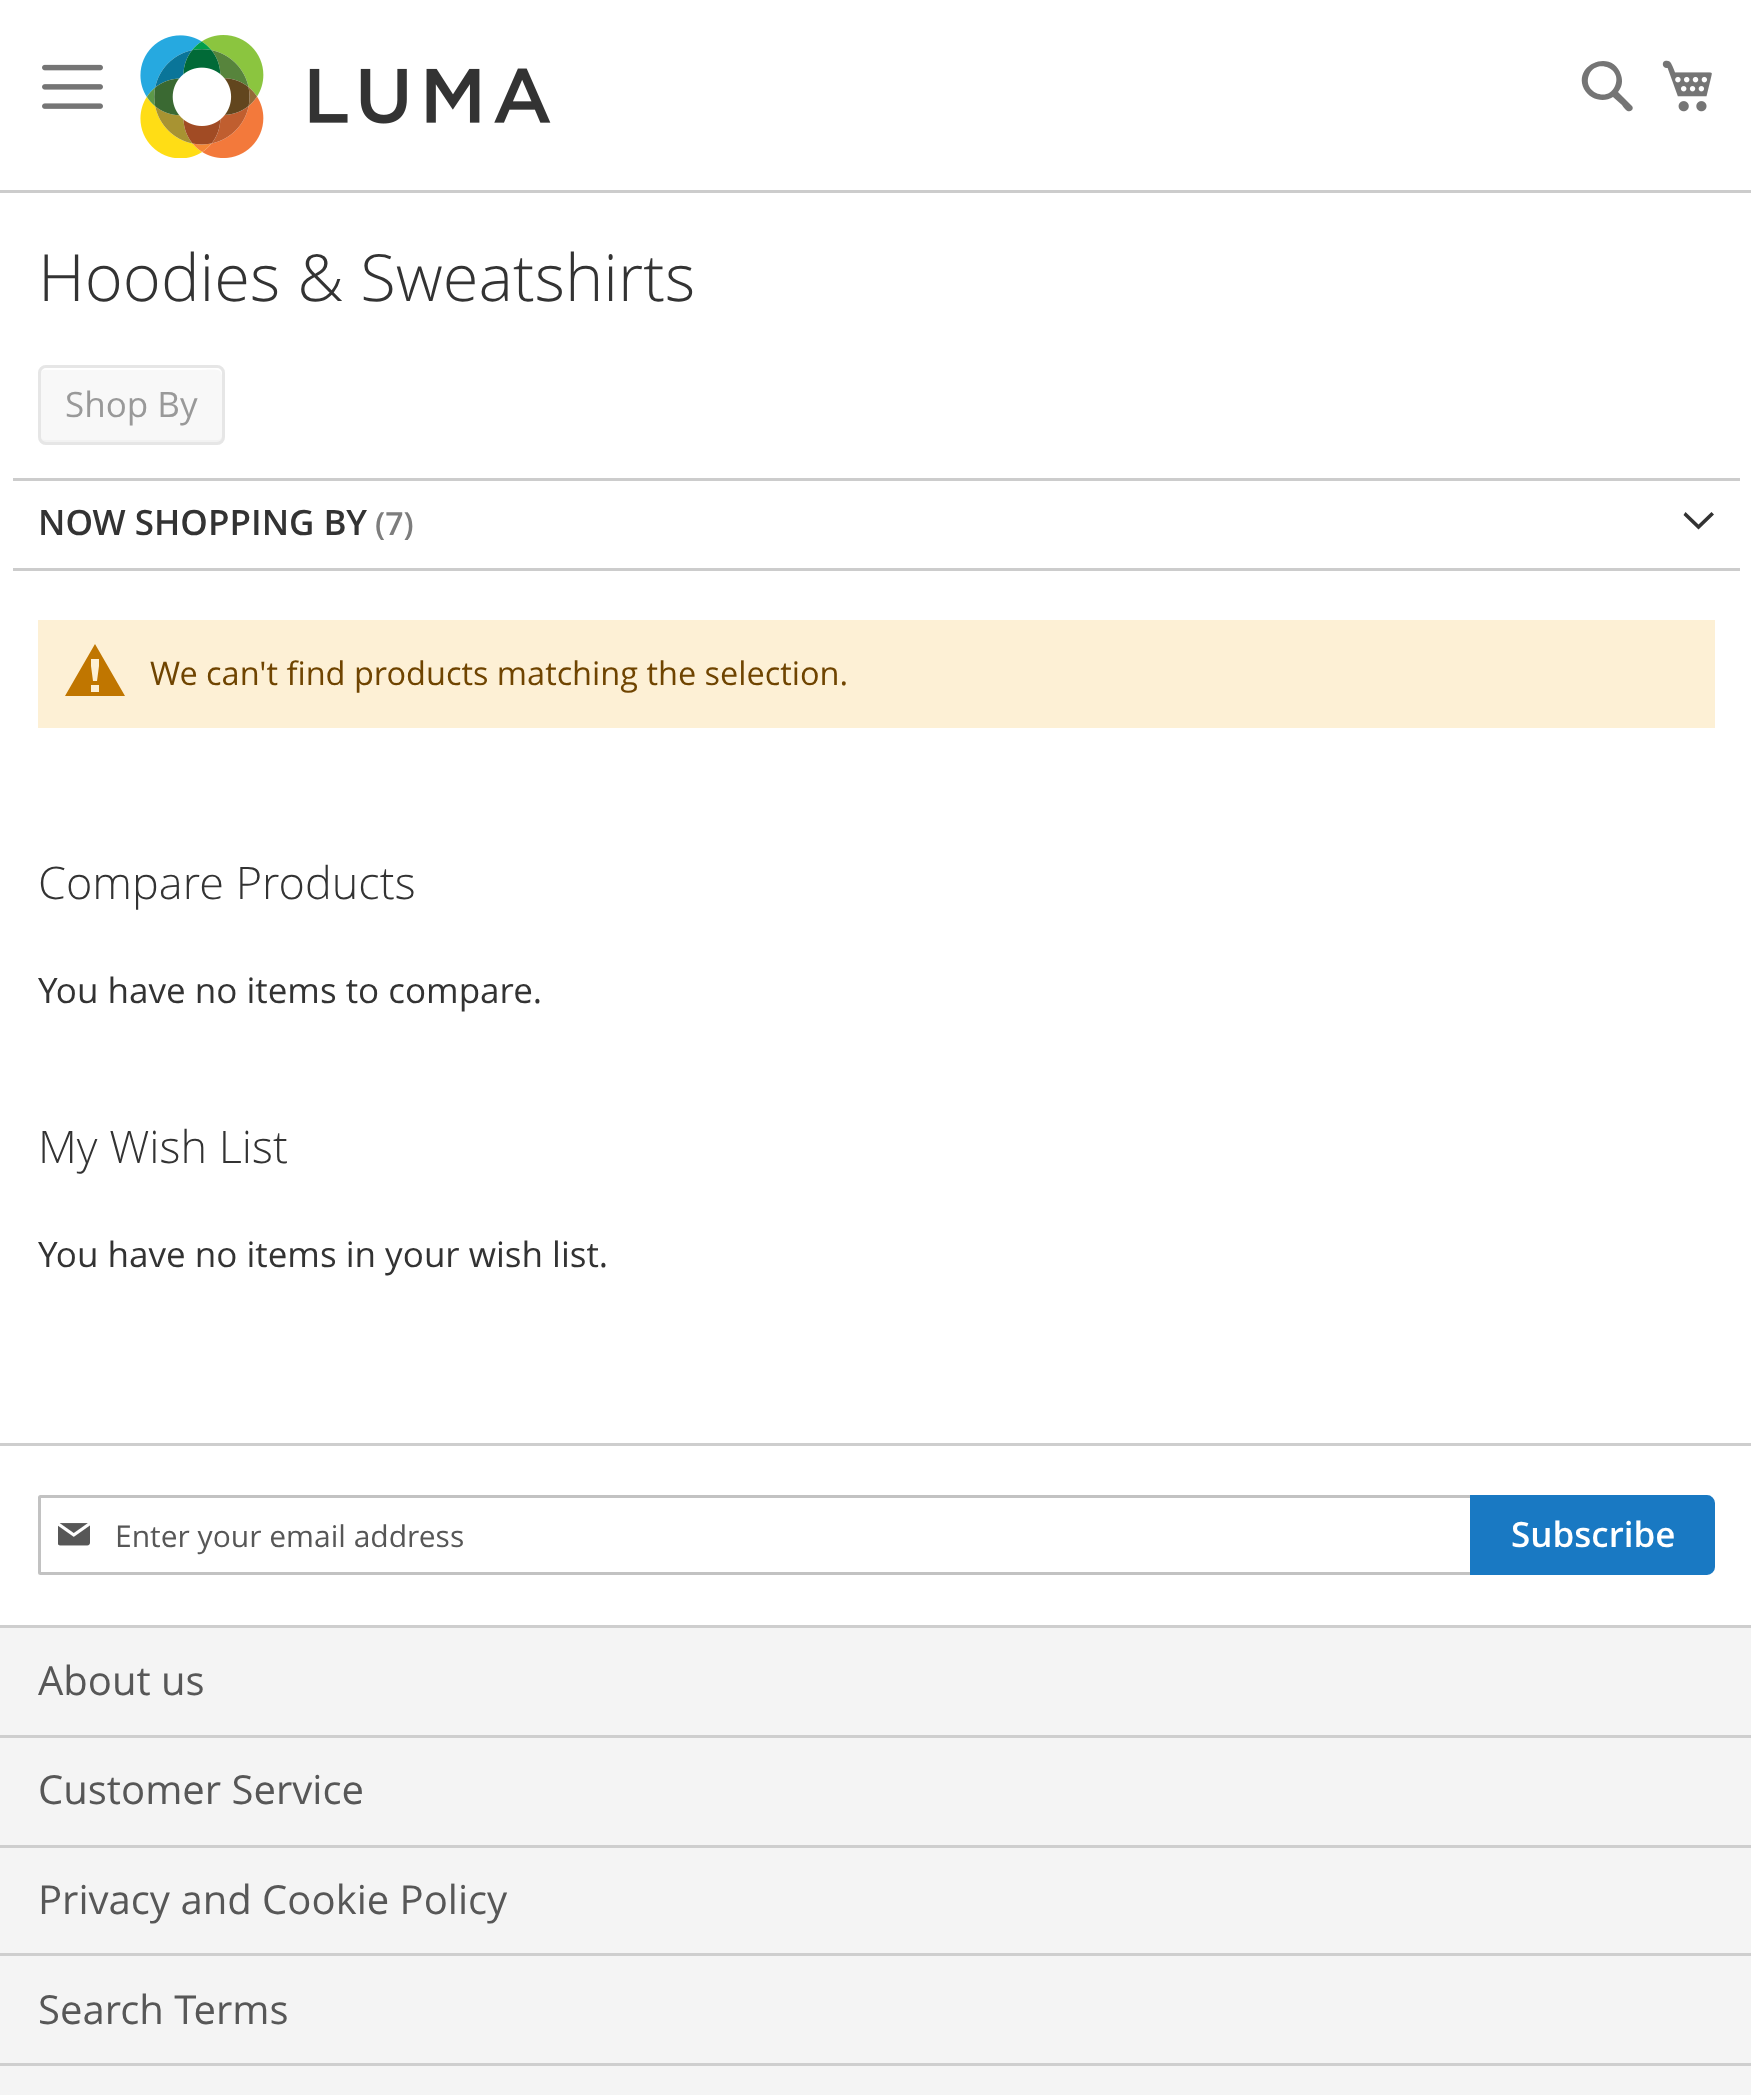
<svg xmlns="http://www.w3.org/2000/svg" width="1751" height="2095">
	<rect width="100%" height="100%" fill="#FFFFFF" />
	<rect x="0" y="190" width="1751" height="3" fill="#CCCCCC" />
	<image x="42" y="64" width="61" height="45" href="assets/img1.png" />
	<image x="140" y="35" width="411" height="123" href="assets/img2.png" />
	<path d="M1632 106L1618 92C1622 87 1623 81 1621 75C1613 48 1572 64 1584 89C1590 100 1604 103 1613 97L1622 105C1624 108 1628 114 1632 110C1633 109 1633 107 1632 106ZM1615 86C1608 103 1582 92 1589 75C1596 58 1623 68 1615 86Z" fill="#757575" />
	<image x="1662" y="60" width="50" height="52" href="assets/img3.png" />
	<text x="38" y="301" font-family="Open Sans" font-size="65" font-weight="300" fill="#333333">Hoodies &amp; Sweatshirts</text>
	<rect x="38" y="365" width="187" height="80" rx="8" fill="#F8F8F8" />
	<path d="M40 435V438C40 441 42 443 45 443H218C221 443 223 441 223 438V373C223 372 223 371 222 370V435C222 438 220 440 218 440H45C42 440 40 438 40 435Z" fill="#F2F2F2" />
	<path d="M45 370H189C227 370 222 363 222 397V441C223 440 223 439 223 438V373C223 370 221 368 218 368H45C42 368 40 370 40 373V375C40 372 42 370 45 370Z" fill="#FFFFFF" />
	<rect x="39.5" y="366.5" width="184" height="77" rx="6.5" fill="none" stroke="#E6E6E6" stroke-width="3" />
	<text x="65" y="417" font-family="Open Sans" font-size="35" fill="#999999">Shop By</text>
	<rect x="13" y="478" width="1727" height="3" fill="#CCCCCC" />
	<rect x="13" y="568" width="1727" height="3" fill="#CCCCCC" />
	<text x="38" y="535" font-family="Open Sans" font-size="35" font-weight="600" fill="#333333">NOW SHOPPING BY</text>
	<text x="375" y="535" font-family="Open Sans" font-size="32" font-weight="600" fill="#7D7D7D">(7)</text>
	<path d="M1698.5 524.5L1685.5 512L1683.5 515L1698.5 529.5L1714 514.5L1711.5 512Z" fill="#333333" />
	<rect x="38" y="620" width="1677" height="108" fill="#FDF0D5" />
	<path d="M95 644L65 696H125ZM99 659V666L97 681H93L91 666V659ZM91 692V685H99V692Z" fill="#C07600" />
	<text x="150" y="685" font-family="Open Sans" font-size="32.5" fill="#6F4400">We can't find products matching the selection.</text>
	<text x="38" y="899" font-family="Open Sans" font-size="45" font-weight="300" fill="#333333">Compare Products</text>
	<text x="38" y="1003" font-family="Open Sans" font-size="35" fill="#333333">You have no items to compare.</text>
	<text x="38" y="1163" font-family="Open Sans" font-size="45" font-weight="300" fill="#333333">My Wish List</text>
	<text x="38" y="1267" font-family="Open Sans" font-size="35" fill="#333333">You have no items in your wish list.</text>
	<rect x="0" y="1443" width="1751" height="3" fill="#CECECE" />
	<rect x="39.5" y="1496.5" width="1432" height="77" rx="1" fill="none" stroke="#C2C2C2" stroke-width="3" />
	<image x="58" y="1523" width="32" height="23" href="assets/img4.png" />
	<text x="115" y="1547" font-family="Open Sans" font-size="30" fill="#575757">Enter your email address</text>
	<path d="M1471.5 1496.5H1707C1710.5 1496.5 1713.5 1499.5 1713.5 1503V1567C1713.5 1570.5 1710.5 1573.5 1707 1573.5H1471.5Z" fill="#1979C3" stroke="#1979C3" stroke-width="3" />
	<text x="1511" y="1547" font-family="Open Sans" font-size="35" font-weight="600" fill="#FFFFFF">Subscribe</text>
	<rect x="0" y="1628" width="1751" height="107" fill="#F4F4F4" />
	<rect x="0" y="1625" width="1751" height="3" fill="#CECECE" />
	<text x="38" y="1695" font-family="Open Sans" font-size="40" fill="#575757">About us</text>
	<rect x="0" y="1738" width="1751" height="107" fill="#F4F4F4" />
	<rect x="0" y="1735" width="1751" height="3" fill="#CECECE" />
	<text x="38" y="1804" font-family="Open Sans" font-size="40" fill="#575757">Customer Service</text>
	<rect x="0" y="1848" width="1751" height="105" fill="#F4F4F4" />
	<rect x="0" y="1845" width="1751" height="3" fill="#CECECE" />
	<text x="38" y="1914" font-family="Open Sans" font-size="40" fill="#575757">Privacy and Cookie Policy</text>
	<rect x="0" y="1956" width="1751" height="107" fill="#F4F4F4" />
	<rect x="0" y="1953" width="1751" height="3" fill="#CECECE" />
	<text x="38" y="2024" font-family="Open Sans" font-size="40" fill="#575757">Search Terms</text>
	<rect x="0" y="2066" width="1751" height="29" fill="#F4F4F4" />
	<rect x="0" y="2063" width="1751" height="3" fill="#CECECE" />
</svg>
